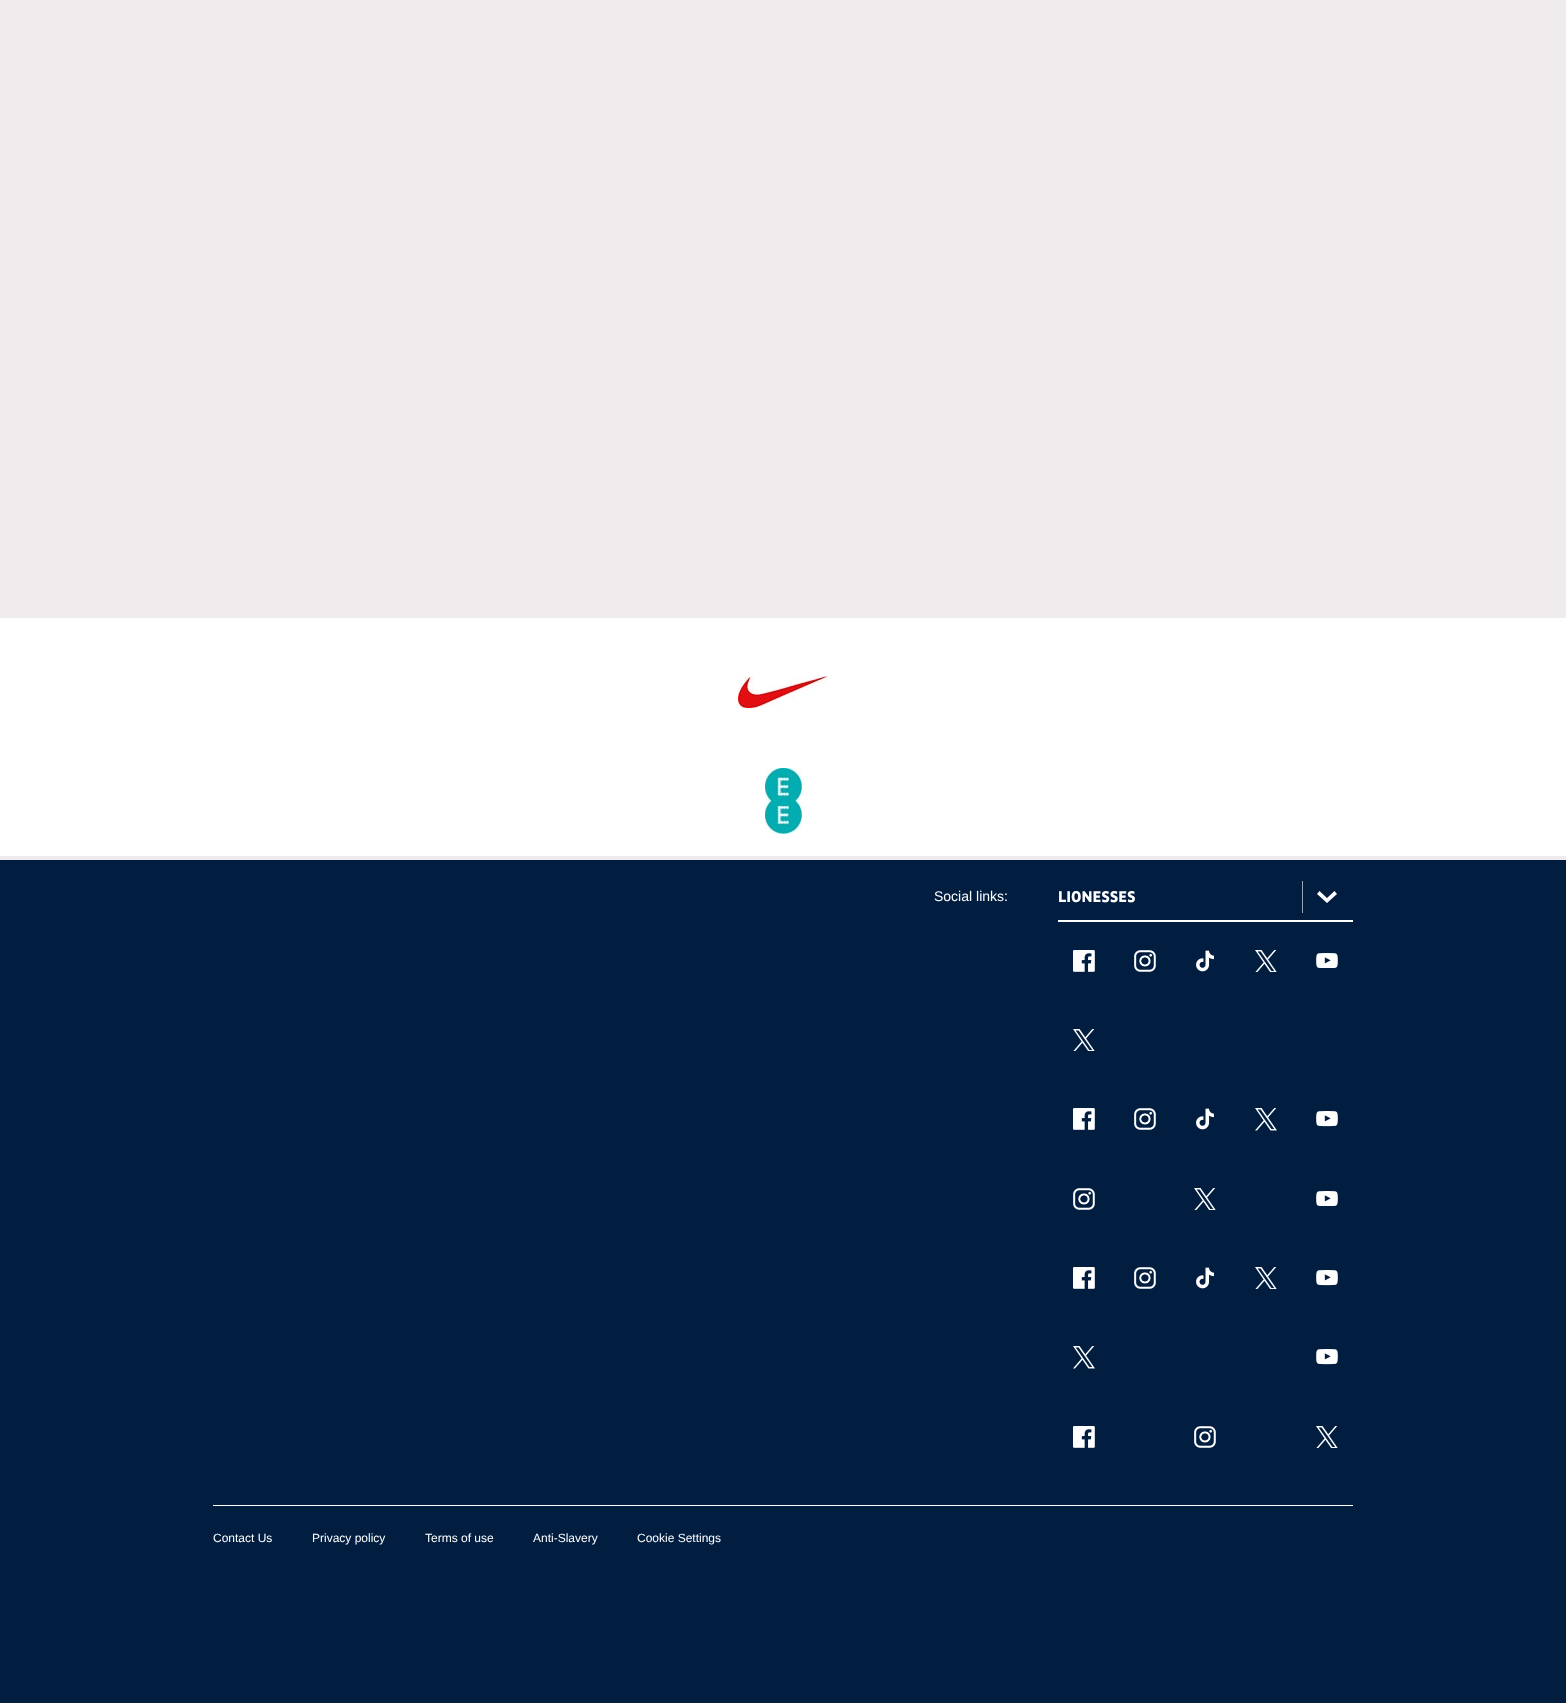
<svg xmlns="http://www.w3.org/2000/svg" width="1566" height="1703">
	<rect width="100%" height="100%" fill="#F0ECED" />
	<rect x="0" y="618" width="1566" height="238" fill="#FFFFFF" />
	<image x="738" y="676" width="90" height="32" href="assets/img1.png" />
	<image x="765" y="768" width="37" height="66" href="assets/img2.png" />
	<rect x="0" y="860" width="1566" height="843" fill="#011E41" />
	<text x="934" y="901" font-family="Liberation Sans" font-size="14" fill="#FFFFFF">Social links:</text>
	<rect x="1058" y="920" width="295" height="2" fill="#FFFFFF" />
	<text x="1058" y="902" font-family="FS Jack" font-size="16" font-weight="700" fill="#FFFFFF">LIONESSES</text>
	<rect x="1302" y="881" width="1" height="32" fill="#99A5B3" />
	<path d="M1337 894L1334.5 891L1327 898L1319.5 891L1317 894L1327 903Z" fill="#FFFFFF" fill-rule="evenodd" />
	<image x="1073" y="950" width="22" height="22" href="assets/img3.png" />
	<image x="1134" y="950" width="22" height="22" href="assets/img4.png" />
	<image x="1196" y="950" width="18" height="22" href="assets/img5.png" />
	<image x="1255" y="950" width="22" height="22" href="assets/img6.png" />
	<image x="1316" y="953" width="22" height="15" href="assets/img7.png" />
	<image x="1073" y="1029" width="22" height="22" href="assets/img6.png" />
	<image x="1073" y="1108" width="22" height="22" href="assets/img3.png" />
	<image x="1134" y="1108" width="22" height="22" href="assets/img4.png" />
	<image x="1196" y="1108" width="18" height="22" href="assets/img5.png" />
	<image x="1255" y="1108" width="22" height="23" href="assets/img8.png" />
	<image x="1316" y="1111" width="22" height="16" href="assets/img9.png" />
	<image x="1073" y="1188" width="22" height="22" href="assets/img4.png" />
	<image x="1194" y="1188" width="22" height="22" href="assets/img6.png" />
	<image x="1316" y="1191" width="22" height="15" href="assets/img7.png" />
	<image x="1073" y="1267" width="22" height="22" href="assets/img3.png" />
	<image x="1134" y="1267" width="22" height="22" href="assets/img4.png" />
	<image x="1196" y="1267" width="18" height="22" href="assets/img5.png" />
	<image x="1255" y="1267" width="22" height="22" href="assets/img6.png" />
	<image x="1316" y="1270" width="22" height="16" href="assets/img9.png" />
	<image x="1073" y="1346" width="22" height="23" href="assets/img8.png" />
	<image x="1316" y="1349" width="22" height="16" href="assets/img9.png" />
	<image x="1073" y="1426" width="22" height="22" href="assets/img3.png" />
	<image x="1194" y="1426" width="22" height="22" href="assets/img4.png" />
	<image x="1316" y="1426" width="22" height="22" href="assets/img6.png" />
	<rect x="213" y="1505" width="1140" height="1" fill="#FFFFFF" />
	<g font-family="Liberation Sans" font-size="12" fill="#FFFFFF">
		<text x="213" y="1542">Contact Us</text>
		<text x="312" y="1542">Privacy policy</text>
		<text x="425" y="1542">Terms of use</text>
		<text x="533" y="1542">Anti-Slavery</text>
		<text x="637" y="1542">Cookie Settings</text>
	</g>
</svg>
